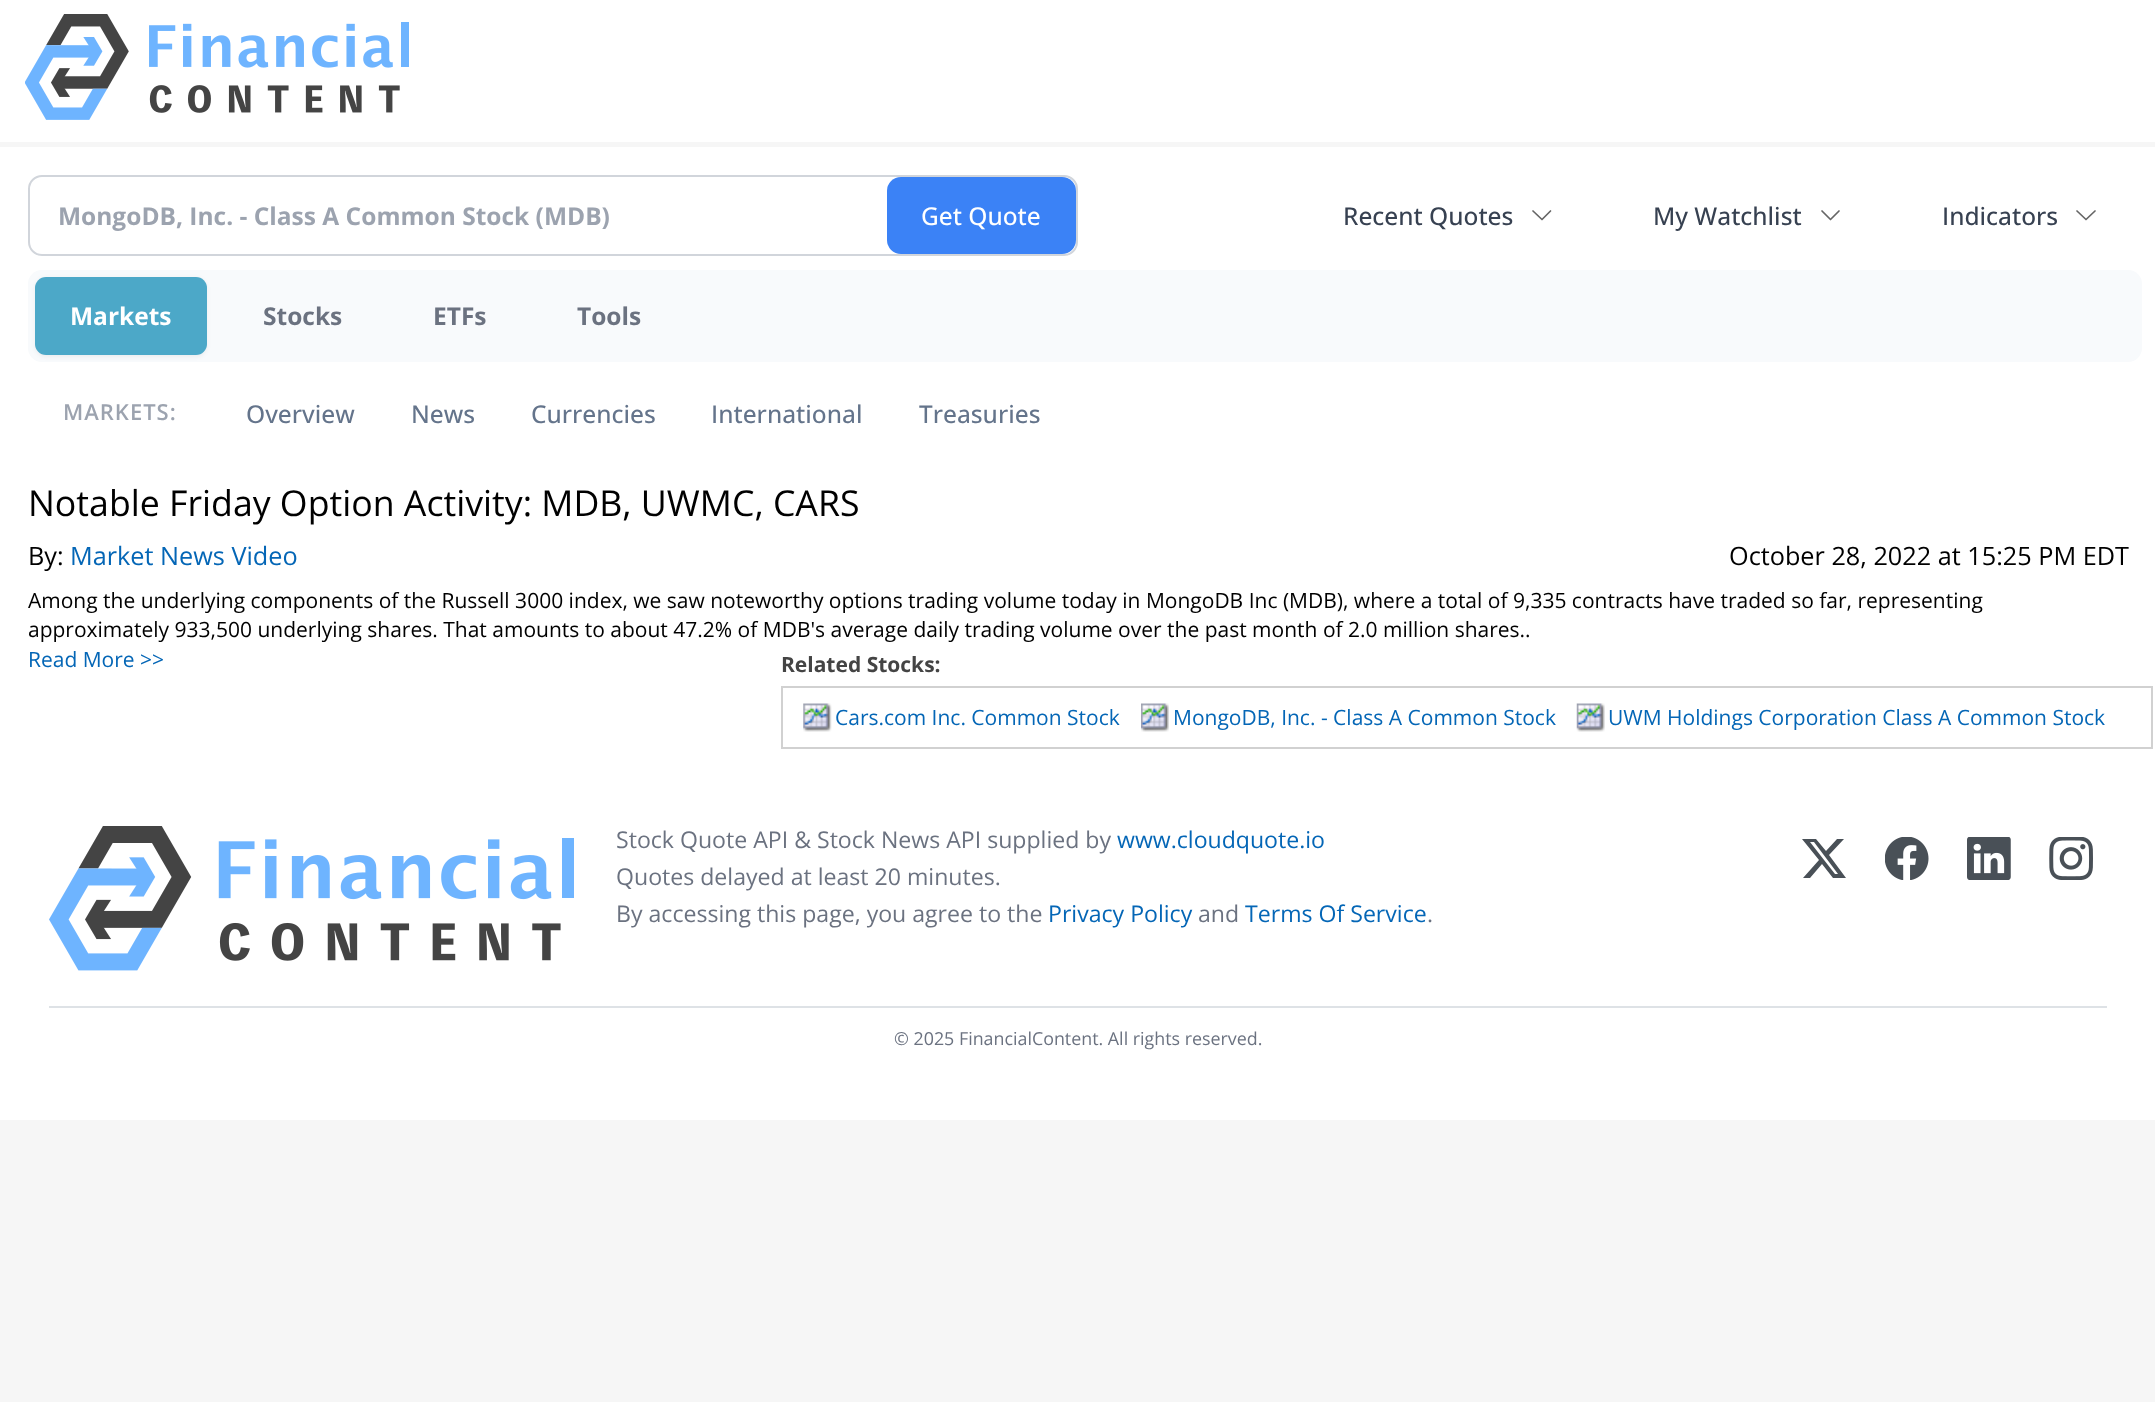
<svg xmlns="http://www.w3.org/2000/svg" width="2155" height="1402">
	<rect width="100%" height="100%" fill="#F6F6F6" />
	<rect x="0" y="0" width="2155" height="142" fill="#FFFFFF" />
	<image x="25" y="14" width="384" height="106" href="assets/img1.png" />
	<rect x="0" y="147" width="2155" height="973" fill="#FFFFFF" />
	<rect x="29" y="176" width="1048" height="79" rx="13" fill="none" stroke="#D1D5DB" stroke-width="2" />
	<text x="58" y="225" font-family="Open Sans" font-size="24.5" font-weight="700" fill="#9CA3AF">MongoDB, Inc. - Class A Common Stock (MDB)</text>
	<rect x="887" y="177" width="189" height="77" rx="14" fill="#3B82F6" />
	<text x="921" y="225" font-family="Open Sans" font-size="24.5" font-weight="500" fill="#FFFFFF">Get Quote</text>
	<text x="1343" y="225" font-family="Open Sans" font-size="24.5" font-weight="500" fill="#374151">Recent Quotes</text>
	<path d="M1550.5 211L1542 219.5L1533 211" fill="none" stroke="#666666" stroke-width="1.7" stroke-linecap="round" stroke-linejoin="round" />
	<text x="1653" y="225" font-family="Open Sans" font-size="24.5" font-weight="500" fill="#374151">My Watchlist</text>
	<path d="M1839 211L1830.5 219.5L1822 211" fill="none" stroke="#666666" stroke-width="1.7" stroke-linecap="round" stroke-linejoin="round" />
	<text x="1942" y="225" font-family="Open Sans" font-size="24.5" font-weight="500" fill="#374151">Indicators</text>
	<path d="M2095 211L2086 219.5L2077 211" fill="none" stroke="#666666" stroke-width="1.7" stroke-linecap="round" stroke-linejoin="round" />
	<rect x="28" y="270" width="2114" height="92" rx="14" fill="#F8FAFC" />
	<rect x="35" y="278" width="172" height="79" rx="11" fill="#000000" fill-opacity="0.05" filter="blur(2px)" />
	<rect x="35" y="277" width="172" height="78" rx="11" fill="#4CA8C8" />
	<text x="70" y="325" font-family="Open Sans" font-size="24.5" font-weight="700" fill="#FFFFFF">Markets</text>
	<g font-family="Open Sans" font-size="24.5" font-weight="700" fill="#6B7280">
		<text x="263" y="325">Stocks</text>
		<text x="433" y="325">ETFs</text>
		<text x="577" y="325">Tools</text>
	</g>
	<text x="63" y="420" font-family="Open Sans" font-size="22" font-weight="600" letter-spacing="1" fill="#9CA3AF">MARKETS:</text>
	<g font-family="Open Sans" font-size="24.5" font-weight="500" fill="#64748B">
		<text x="246" y="423">Overview</text>
		<text x="411" y="423">News</text>
		<text x="531" y="423">Currencies</text>
		<text x="711" y="423">International</text>
		<text x="919" y="423">Treasuries</text>
	</g>
	<text x="28" y="516" font-family="Open Sans" font-size="35.7" fill="#000000">Notable Friday Option Activity: MDB, UWMC, CARS</text>
	<text x="28" y="565" font-family="Open Sans" font-size="25.25" fill="#000000">By:</text>
	<text x="70" y="565" font-family="Open Sans" font-size="25.25" fill="#0466B6">Market News Video</text>
	<text x="1729" y="565" font-family="Open Sans" font-size="25.25" fill="#000000">October 28, 2022 at 15:25 PM EDT</text>
	<g font-family="Open Sans" font-size="21" fill="#000000">
		<text x="28" y="608">Among the underlying components of the Russell 3000 index, we saw noteworthy options trading volume today in MongoDB Inc (MDB), where a total of 9,335 contracts have traded so far, representing</text>
		<text x="28" y="637">approximately 933,500 underlying shares. That amounts to about 47.2% of MDB's average daily trading volume over the past month of 2.0 million shares..</text>
	</g>
	<text x="28" y="667" font-family="Open Sans" font-size="21" fill="#0466B6">Read More &gt;&gt;</text>
	<text x="781" y="672" font-family="Open Sans" font-size="21" font-weight="700" fill="#444444">Related Stocks:</text>
	<rect x="782" y="687" width="1370" height="61" fill="none" stroke="#D1D1D1" stroke-width="2" />
	<image x="803" y="703" width="29" height="29" href="assets/img2.png" />
	<text x="835" y="725" font-family="Open Sans" font-size="21" fill="#0466B6">Cars.com Inc. Common Stock</text>
	<image x="1141" y="703" width="28" height="29" href="assets/img3.png" />
	<text x="1173" y="725" font-family="Open Sans" font-size="21" fill="#0466B6">MongoDB, Inc. - Class A Common Stock</text>
	<image x="1576" y="703" width="29" height="29" href="assets/img4.png" />
	<text x="1608" y="725" font-family="Open Sans" font-size="21" fill="#0466B6">UWM Holdings Corporation Class A Common Stock</text>
	<image x="49" y="826" width="525" height="145" href="assets/img5.png" />
	<text x="616" y="848" font-family="Open Sans" font-size="23.1" fill="#6B7280">Stock Quote API &amp; Stock News API supplied by</text>
	<text x="1117" y="848" font-family="Open Sans" font-size="23.1" fill="#0466B6">www.cloudquote.io</text>
	<g font-family="Open Sans" font-size="23.1" fill="#6B7280">
		<text x="616" y="885">Quotes delayed at least 20 minutes.</text>
		<text x="616" y="922">By accessing this page, you agree to the</text>
	</g>
	<text x="1048" y="922" font-family="Open Sans" font-size="23.1" fill="#0466B6">Privacy Policy</text>
	<text x="1198" y="922" font-family="Open Sans" font-size="23.1" fill="#6B7280">and</text>
	<text x="1245" y="922" font-family="Open Sans" font-size="23.1" fill="#0466B6">Terms Of Service</text>
	<text x="1427" y="922" font-family="Open Sans" font-size="23.1" fill="#6B7280">.</text>
	<path d="M1837 839H1844L1829 855L1846 878H1833L1822 864L1810 878H1803L1819 860L1802 839H1816L1826 851ZM1835 874H1838L1814 842H1810Z" fill="#495057" />
	<image x="1885" y="837" width="44" height="43" href="assets/img6.png" />
	<image x="1967" y="837" width="44" height="43" href="assets/img7.png" />
	<image x="2049" y="837" width="44" height="43" href="assets/img8.png" />
	<rect x="49" y="1006" width="2058" height="2" fill="#DEE2E6" />
	<text x="894" y="1045" font-family="Open Sans" font-size="17.85" fill="#6B7280">© 2025 FinancialContent. All rights reserved.</text>
</svg>
